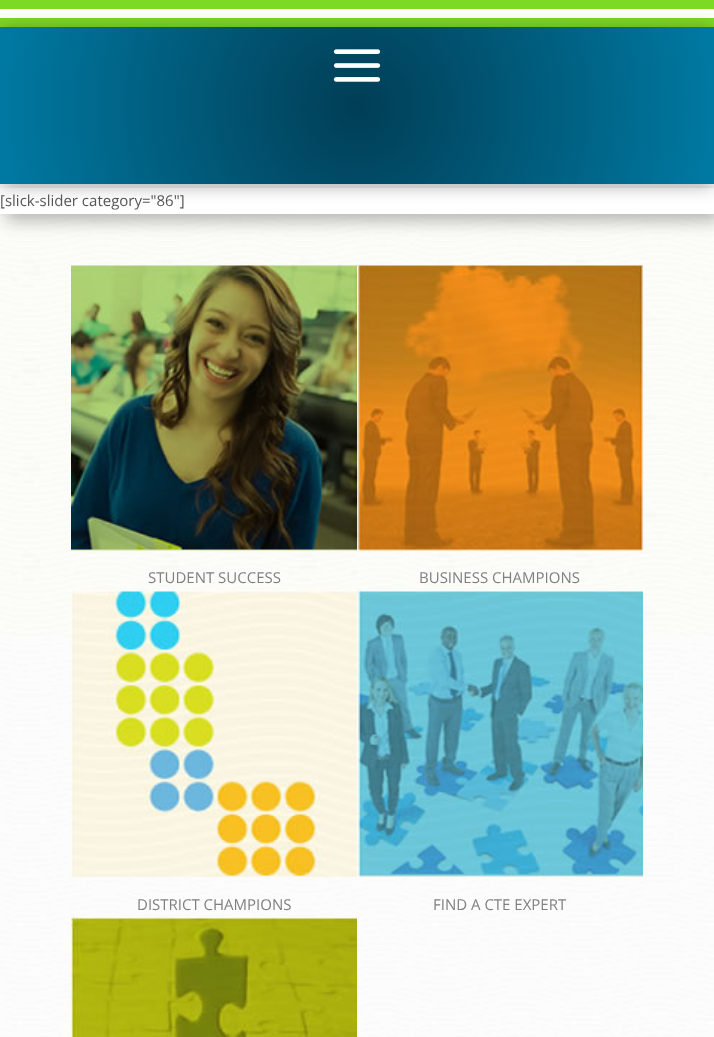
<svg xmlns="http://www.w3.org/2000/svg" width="714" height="1037">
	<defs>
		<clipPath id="clip1"><path d="M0 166H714V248H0ZM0 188H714V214H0Z" clip-rule="evenodd" /></clipPath>
		<radialGradient id="g1" gradientUnits="userSpaceOnUse" cx="357" cy="106" r="366"><stop offset="0" stop-color="#013E56" /><stop offset="1" stop-color="#007AA3" /></radialGradient>
	</defs>
	<rect width="100%" height="100%" fill="#FFFFFF" />
	<rect x="0" y="0" width="714" height="9" fill="#7CDA24" />
	<rect x="0" y="18" width="714" height="9" fill="#7CDA24" />
	<rect x="0" y="29" width="714" height="157" fill="#000000" fill-opacity="0.3" filter="blur(9px)" />
	<image x="0" y="214" width="714" height="823" href="assets/img2.png" />
	<g clip-path="url(#clip1)">
		<rect x="6" y="194" width="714" height="26" fill="#000000" fill-opacity="0.3" filter="blur(9px)" />
	</g>
	<rect x="0" y="27" width="714" height="157" fill="url(#g1)" />
	<image x="333" y="49" width="48" height="33" href="assets/img1.png" />
	<text x="0" y="206" font-family="Open Sans" font-size="15" fill="#555555">[slick-slider category="86"]</text>
	<image x="71" y="264" width="286" height="287" href="assets/img3.png" />
	<text x="148" y="583" font-family="Open Sans" font-size="15" fill="#808080">STUDENT SUCCESS</text>
	<image x="357" y="264" width="286" height="287" href="assets/img4.png" />
	<text x="419" y="583" font-family="Open Sans" font-size="15" fill="#808080">BUSINESS CHAMPIONS</text>
	<image x="71" y="590" width="286" height="287" href="assets/img5.png" />
	<text x="137" y="910" font-family="Open Sans" font-size="15" fill="#808080">DISTRICT CHAMPIONS</text>
	<image x="357" y="590" width="286" height="287" href="assets/img6.png" />
	<text x="433" y="910" font-family="Open Sans" font-size="15" fill="#808080">FIND A CTE EXPERT</text>
	<image x="71" y="917" width="286" height="120" href="assets/img7.png" />
</svg>
